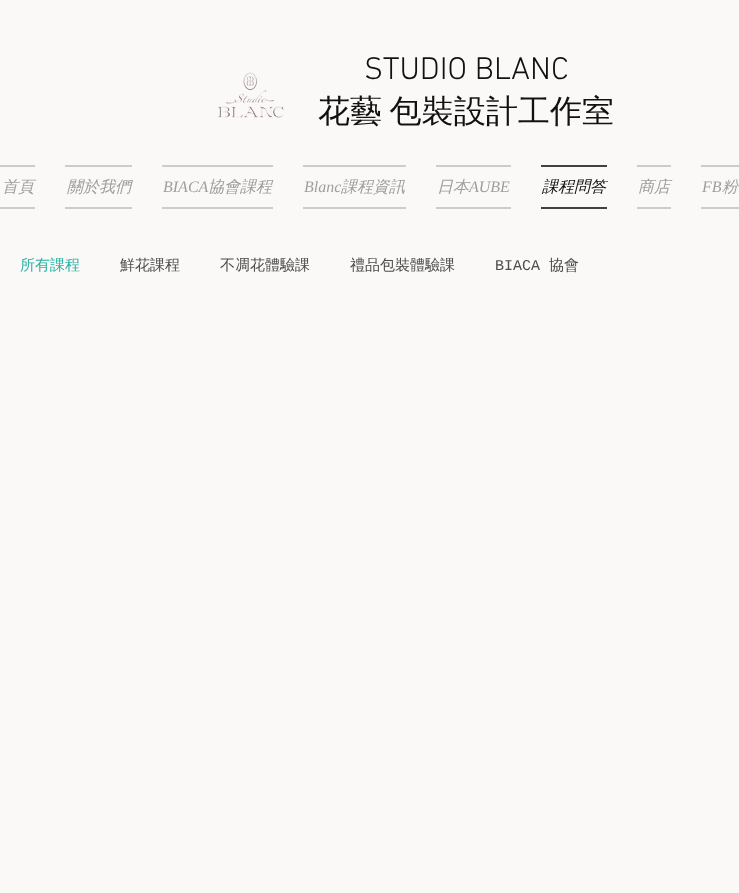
<svg xmlns="http://www.w3.org/2000/svg" width="739" height="893">
	<rect width="100%" height="100%" fill="#FAF9F7" />
	<image x="218" y="72" width="66" height="46" href="assets/img1.png" />
	<text x="364" y="79" font-family="'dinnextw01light'" font-size="32" font-weight="300" fill="#111111">STUDIO BLANC</text>
	<g font-family="WenQuanYi Zen Hei" font-size="32" font-weight="500" fill="#111111">
		<text x="318" y="122" word-spacing="-2">花藝 包裝</text>
		<text x="454" y="122">設計工作室</text>
	</g>
	<rect x="0" y="165" width="35" height="2" fill="#CCCCCC" />
	<rect x="0" y="207" width="35" height="2" fill="#CCCCCC" />
	<text x="2" y="192" font-family="WenQuanYi Zen Hei" font-size="16" font-weight="500" font-style="italic" fill="#9E9E9E">首頁</text>
	<rect x="65" y="165" width="67" height="2" fill="#CCCCCC" />
	<rect x="65" y="207" width="67" height="2" fill="#CCCCCC" />
	<text x="67" y="192" font-family="WenQuanYi Zen Hei" font-size="16" font-weight="500" font-style="italic" fill="#9E9E9E">關於我們</text>
	<rect x="162" y="165" width="111" height="2" fill="#CCCCCC" />
	<rect x="162" y="207" width="111" height="2" fill="#CCCCCC" />
	<text x="163" y="192" font-family="Liberation Serif" font-size="16" font-style="italic" fill="#9E9E9E">BIACA</text>
	<text x="208" y="192" font-family="WenQuanYi Zen Hei" font-size="16" font-weight="500" font-style="italic" fill="#9E9E9E">協會課程</text>
	<rect x="303" y="165" width="103" height="2" fill="#CCCCCC" />
	<rect x="303" y="207" width="103" height="2" fill="#CCCCCC" />
	<text x="304" y="192" font-family="Liberation Serif" font-size="16" font-style="italic" fill="#9E9E9E">Blanc</text>
	<text x="341" y="192" font-family="WenQuanYi Zen Hei" font-size="16" font-weight="500" font-style="italic" fill="#9E9E9E">課程資訊</text>
	<rect x="436" y="165" width="75" height="2" fill="#CCCCCC" />
	<rect x="436" y="207" width="75" height="2" fill="#CCCCCC" />
	<text x="437" y="192" font-family="WenQuanYi Zen Hei" font-size="16" font-weight="500" font-style="italic" fill="#9E9E9E">日本</text>
	<text x="469" y="192" font-family="Liberation Serif" font-size="16" font-style="italic" fill="#9E9E9E">AUBE</text>
	<rect x="541" y="165" width="66" height="2" fill="#414141" />
	<rect x="541" y="207" width="66" height="2" fill="#414141" />
	<text x="542" y="192" font-family="WenQuanYi Zen Hei" font-size="16" font-weight="500" font-style="italic" fill="#111111">課程問答</text>
	<rect x="637" y="165" width="34" height="2" fill="#CCCCCC" />
	<rect x="637" y="207" width="34" height="2" fill="#CCCCCC" />
	<text x="638" y="192" font-family="WenQuanYi Zen Hei" font-size="16" font-weight="500" font-style="italic" fill="#9E9E9E">商店</text>
	<rect x="701" y="165" width="38" height="2" fill="#CCCCCC" />
	<rect x="701" y="207" width="38" height="2" fill="#CCCCCC" />
	<text x="702" y="192" font-family="Liberation Serif" font-size="16" font-style="italic" fill="#9E9E9E">FB</text>
	<text x="722" y="192" font-family="WenQuanYi Zen Hei" font-size="16" font-weight="500" font-style="italic" fill="#9E9E9E">粉</text>
	<text x="20" y="270" font-family="WenQuanYi Zen Hei" font-size="15" font-weight="500" fill="#28B2A4">所有課程</text>
	<g font-family="WenQuanYi Zen Hei" font-size="15" font-weight="500" fill="#4B4B4B">
		<text x="120" y="270">鮮花課程</text>
		<text x="220" y="270">不凋花體驗課</text>
		<text x="350" y="270">禮品包裝體驗課</text>
	</g>
	<text x="495" y="270" font-family="Liberation Mono" font-size="15" fill="#4B4B4B">BIACA</text>
	<text x="549" y="270" font-family="WenQuanYi Zen Hei" font-size="15" font-weight="500" fill="#4B4B4B">協會</text>
</svg>
